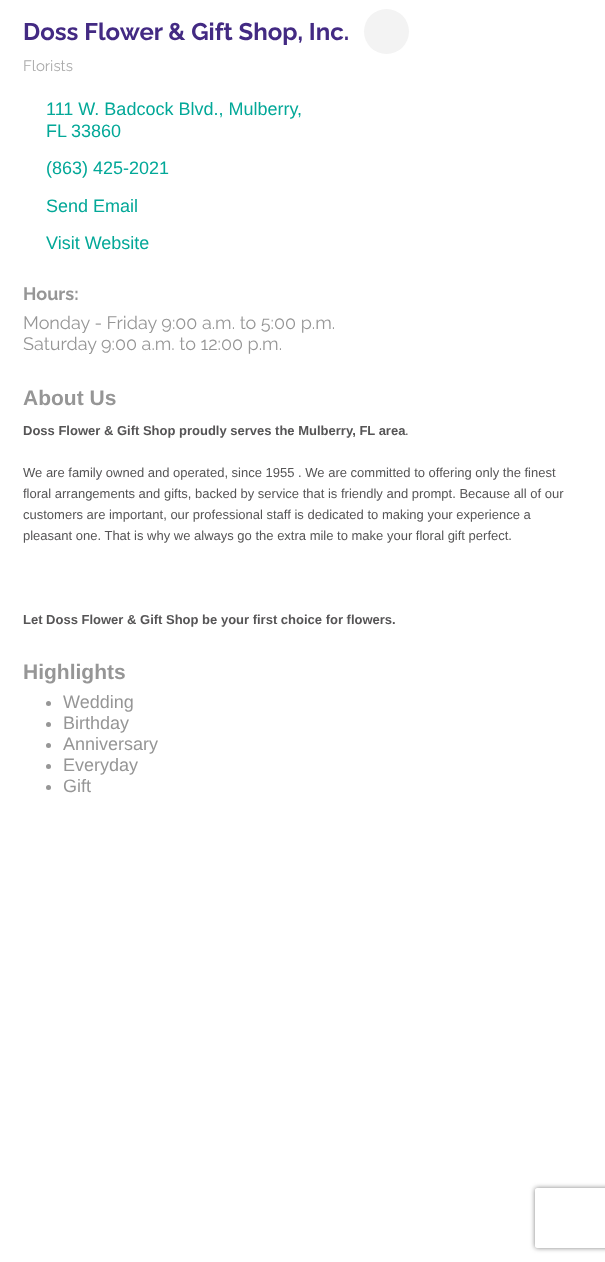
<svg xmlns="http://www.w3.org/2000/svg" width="605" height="1262">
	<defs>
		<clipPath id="clip1"><path d="M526 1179H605V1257H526ZM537 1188H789C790 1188 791 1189 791 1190V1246C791 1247 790 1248 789 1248H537C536 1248 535 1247 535 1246V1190C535 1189 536 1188 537 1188Z" clip-rule="evenodd" /></clipPath>
	</defs>
	<rect width="100%" height="100%" fill="#FFFFFF" />
	<text x="23" y="40" font-family="Raleway" font-size="24" font-weight="700" fill="#432A83">Doss Flower &amp; Gift Shop, Inc.</text>
	<circle cx="386.5" cy="31.5" r="22.5" fill="#F3F3F3" />
	<text x="23" y="71" font-family="Raleway" font-size="15" fill="#ABABAB">Florists</text>
	<g font-family="Liberation Sans" font-size="18" fill="#03A898">
		<text x="46" y="115">111 W. Badcock Blvd., Mulberry</text>
		<text x="297" y="115">,</text>
		<text x="46" y="137">FL</text>
		<text x="71" y="137">33860</text>
		<text x="46" y="174">(863) 425-2021</text>
		<text x="46" y="212">Send Email</text>
		<text x="46" y="249">Visit Website</text>
	</g>
	<text x="23" y="300" font-family="Raleway" font-size="18" font-weight="700" fill="#969696">Hours:</text>
	<g font-family="Raleway" font-size="18" fill="#969696">
		<text x="23" y="329">Monday - Friday 9:00 a.m. to 5:00 p.m.</text>
		<text x="23" y="350">Saturday 9:00 a.m. to 12:00 p.m.</text>
	</g>
	<text x="23" y="405" font-family="Liberation Sans" font-size="21" font-weight="700" fill="#969696">About Us</text>
	<text x="23" y="435" font-family="Liberation Sans" font-size="13" font-weight="700" fill="#565556">Doss Flower &amp; Gift Shop proudly serves the Mulberry, FL area</text>
	<g font-family="Liberation Sans" font-size="13" fill="#565556">
		<text x="405" y="435">.</text>
		<text x="23" y="477">We are family owned and operated, since 1955 . We are committed to offering only the finest</text>
		<text x="23" y="498">floral arrangements and gifts, backed by service that is friendly and prompt. Because all of our</text>
		<text x="23" y="519">customers are important, our professional staff is dedicated to making your experience a</text>
		<text x="23" y="540">pleasant one. That is why we always go the extra mile to make your floral gift perfect.</text>
	</g>
	<text x="23" y="624" font-family="Liberation Sans" font-size="13" font-weight="700" fill="#565556">Let Doss Flower &amp; Gift Shop be your first choice for flowers.</text>
	<text x="23" y="679" font-family="Liberation Sans" font-size="21" font-weight="700" fill="#969696">Highlights</text>
	<circle cx="48.5" cy="703.5" r="2.5" fill="#969696" />
	<text x="63" y="708" font-family="Liberation Sans" font-size="18" fill="#969696">Wedding</text>
	<circle cx="48.5" cy="724.5" r="2.5" fill="#969696" />
	<text x="63" y="729" font-family="Liberation Sans" font-size="18" fill="#969696">Birthday</text>
	<circle cx="48.5" cy="745.5" r="2.5" fill="#969696" />
	<text x="63" y="750" font-family="Liberation Sans" font-size="18" fill="#969696">Anniversary</text>
	<circle cx="48.5" cy="766.5" r="2.5" fill="#969696" />
	<text x="63" y="771" font-family="Liberation Sans" font-size="18" fill="#969696">Everyday</text>
	<circle cx="48.5" cy="787.5" r="2.5" fill="#969696" />
	<text x="63" y="792" font-family="Liberation Sans" font-size="18" fill="#969696">Gift</text>
	<g clip-path="url(#clip1)">
		<rect x="535" y="1188" width="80" height="60" rx="2" fill="#808080" filter="blur(2.5px)" />
	</g>
</svg>
